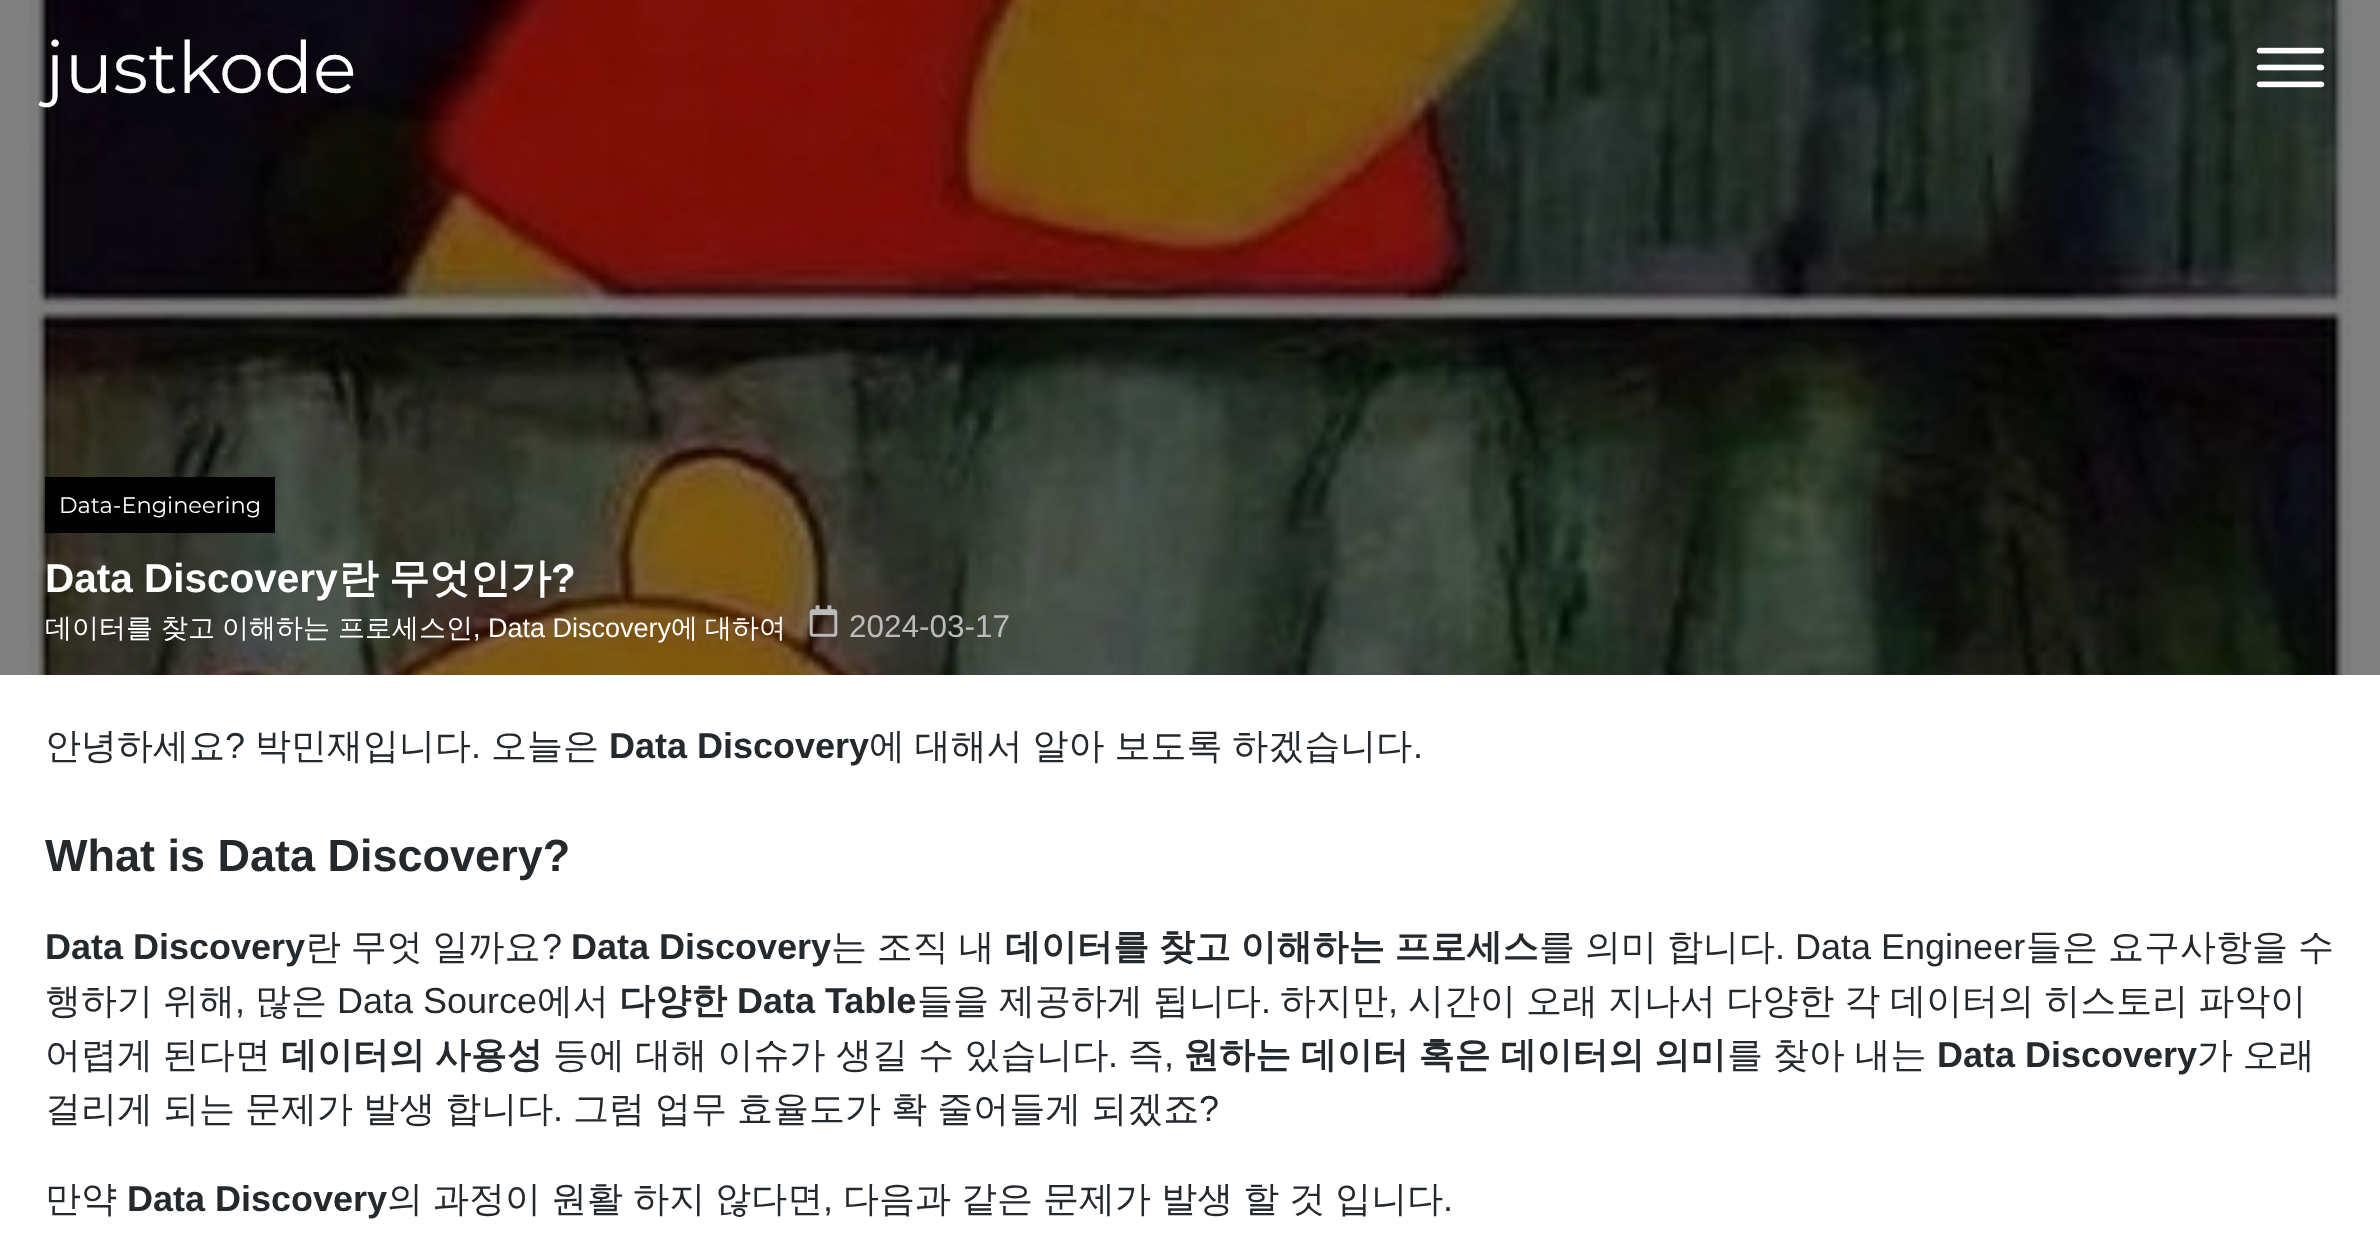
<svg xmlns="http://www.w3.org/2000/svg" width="2380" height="1242">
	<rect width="100%" height="100%" fill="#FFFFFF" />
	<rect x="0" y="0" width="2380" height="675" fill="#808080" />
	<image x="28" y="0" width="2324" height="675" href="assets/img2.png" />
	<text x="45" y="93" font-family="Montserrat" font-size="72" fill="#FFFFFF">justkode</text>
	<image x="2256" y="47" width="69" height="41" href="assets/img1.png" />
	<rect x="45" y="477" width="230" height="56" fill="#000000" />
	<text x="59" y="513" font-family="Montserrat" font-size="22.5" fill="#FFFFFF">Data-Engineering</text>
	<text x="45" y="592" font-family="Liberation Sans" font-size="40.5" font-weight="700" fill="#FFFFFF">Data Discovery</text>
	<g font-family="WenQuanYi Zen Hei" font-size="40.5" font-weight="700" fill="#FFFFFF">
		<text x="338" y="592">란</text>
		<text x="389" y="592">무엇인가</text>
	</g>
	<text x="551" y="592" font-family="Liberation Sans" font-size="40.5" font-weight="700" fill="#FFFFFF">?</text>
	<g font-family="WenQuanYi Zen Hei" font-size="27" font-weight="500" fill="#FFFFFF">
		<text x="45" y="637">데이터를</text>
		<text x="161" y="637">찾고</text>
		<text x="222" y="637">이해하는</text>
		<text x="338" y="637">프로세스인</text>
	</g>
	<text x="473" y="637" font-family="Liberation Sans" font-size="27" fill="#FFFFFF">, Data Discovery</text>
	<g font-family="WenQuanYi Zen Hei" font-size="27" font-weight="500" fill="#FFFFFF">
		<text x="671" y="637">에</text>
		<text x="705" y="637">대하여</text>
	</g>
	<image x="809" y="605" width="29" height="32" href="assets/img3.png" />
	<text x="849" y="637" font-family="Liberation Sans" font-size="31.5" fill="#BBBBBB">2024-03-17</text>
	<text x="45" y="758" font-family="WenQuanYi Zen Hei" font-size="36" font-weight="500" fill="#24292E">안녕하세요</text>
	<text x="225" y="758" font-family="Liberation Sans" font-size="36" fill="#24292E">?</text>
	<text x="255" y="758" font-family="WenQuanYi Zen Hei" font-size="36" font-weight="500" fill="#24292E">박민재입니다</text>
	<text x="471" y="758" font-family="Liberation Sans" font-size="36" fill="#24292E">.</text>
	<text x="491" y="758" font-family="WenQuanYi Zen Hei" font-size="36" font-weight="500" fill="#24292E">오늘은</text>
	<text x="609" y="758" font-family="Liberation Sans" font-size="36" font-weight="700" fill="#24292E">Data Discovery</text>
	<text x="869" y="758" word-spacing="-1" font-family="WenQuanYi Zen Hei" font-size="36" font-weight="500" fill="#24292E">에 대해서 알아 보도록 하겠습니다</text>
	<text x="1413" y="758" font-family="Liberation Sans" font-size="36" fill="#24292E">.</text>
	<text x="45" y="871" font-family="Liberation Sans" font-size="45" font-weight="700" fill="#24292E">What is Data Discovery?</text>
	<text x="45" y="959" font-family="Liberation Sans" font-size="36" font-weight="700" fill="#24292E">Data Discovery</text>
	<text x="305" y="959" word-spacing="-1" font-family="WenQuanYi Zen Hei" font-size="36" font-weight="500" fill="#24292E">란 무엇 일까요</text>
	<text x="542" y="959" font-family="Liberation Sans" font-size="36" fill="#24292E">?</text>
	<text x="571" y="959" font-family="Liberation Sans" font-size="36" font-weight="700" fill="#24292E">Data Discovery</text>
	<text x="831" y="959" word-spacing="-1" font-family="WenQuanYi Zen Hei" font-size="36" font-weight="500" fill="#24292E">는 조직 내</text>
	<text x="1005" y="959" word-spacing="-1" font-family="WenQuanYi Zen Hei" font-size="36" font-weight="700" fill="#24292E">데이터를 찾고 이해하는 프로세스</text>
	<g font-family="WenQuanYi Zen Hei" font-size="36" font-weight="500" fill="#24292E">
		<text x="1539" y="959">를</text>
		<text x="1585" y="959">의미</text>
		<text x="1667" y="959">합니다</text>
	</g>
	<text x="1775" y="959" font-family="Liberation Sans" font-size="36" fill="#24292E">. Data Engineer</text>
	<g font-family="WenQuanYi Zen Hei" font-size="36" font-weight="500" fill="#24292E">
		<text x="2026" y="959">들은</text>
		<text x="2108" y="959">요구사항을</text>
		<text x="2298" y="959">수</text>
		<text x="45" y="1013">행하기</text>
		<text x="163" y="1013">위해</text>
	</g>
	<text x="235" y="1013" font-family="Liberation Sans" font-size="36" fill="#24292E">,</text>
	<text x="255" y="1013" font-family="WenQuanYi Zen Hei" font-size="36" font-weight="500" fill="#24292E">많은</text>
	<text x="337" y="1013" font-family="Liberation Sans" font-size="36" fill="#24292E">Data Source</text>
	<text x="537" y="1013" font-family="WenQuanYi Zen Hei" font-size="36" font-weight="500" fill="#24292E">에서</text>
	<text x="619" y="1013" font-family="WenQuanYi Zen Hei" font-size="36" font-weight="700" fill="#24292E">다양한</text>
	<text x="737" y="1013" font-family="Liberation Sans" font-size="36" font-weight="700" fill="#24292E">Data Table</text>
	<text x="917" y="1013" word-spacing="-0.75" font-family="WenQuanYi Zen Hei" font-size="36" font-weight="500" fill="#24292E">들을 제공하게 됩니다</text>
	<text x="1261" y="1013" font-family="Liberation Sans" font-size="36" fill="#24292E">.</text>
	<text x="1280" y="1013" font-family="WenQuanYi Zen Hei" font-size="36" font-weight="500" fill="#24292E">하지만</text>
	<text x="1388" y="1013" font-family="Liberation Sans" font-size="36" fill="#24292E">,</text>
	<g font-family="WenQuanYi Zen Hei" font-size="36" font-weight="500" fill="#24292E">
		<text x="1408" y="1013" word-spacing="-0.75">시간이 오래 지나서 다양한 각 데이터의 히스토리 파악이</text>
		<text x="45" y="1067" word-spacing="-1">어렵게 된다면</text>
	</g>
	<text x="281" y="1067" word-spacing="-1" font-family="WenQuanYi Zen Hei" font-size="36" font-weight="700" fill="#24292E">데이터의 사용성</text>
	<text x="553" y="1067" word-spacing="-0.5" font-family="WenQuanYi Zen Hei" font-size="36" font-weight="500" fill="#24292E">등에 대해 이슈가 생길 수 있습니다</text>
	<text x="1108" y="1067" font-family="Liberation Sans" font-size="36" fill="#24292E">.</text>
	<text x="1128" y="1067" font-family="WenQuanYi Zen Hei" font-size="36" font-weight="500" fill="#24292E">즉</text>
	<text x="1164" y="1067" font-family="Liberation Sans" font-size="36" fill="#24292E">,</text>
	<text x="1183" y="1067" word-spacing="-1" font-family="WenQuanYi Zen Hei" font-size="36" font-weight="700" fill="#24292E">원하는 데이터 혹은 데이터의 의미</text>
	<text x="1727" y="1067" word-spacing="-1" font-family="WenQuanYi Zen Hei" font-size="36" font-weight="500" fill="#24292E">를 찾아 내는</text>
	<text x="1937" y="1067" font-family="Liberation Sans" font-size="36" font-weight="700" fill="#24292E">Data Discovery</text>
	<g font-family="WenQuanYi Zen Hei" font-size="36" font-weight="500" fill="#24292E">
		<text x="2197" y="1067" word-spacing="-1">가 오래</text>
		<text x="45" y="1121" word-spacing="-0.75">걸리게 되는 문제가 발생 합니다</text>
	</g>
	<text x="553" y="1121" font-family="Liberation Sans" font-size="36" fill="#24292E">.</text>
	<text x="573" y="1121" word-spacing="-0.75" font-family="WenQuanYi Zen Hei" font-size="36" font-weight="500" fill="#24292E">그럼 업무 효율도가 확 줄어들게 되겠죠</text>
	<text x="1199" y="1121" font-family="Liberation Sans" font-size="36" fill="#24292E">?</text>
	<text x="45" y="1211" font-family="WenQuanYi Zen Hei" font-size="36" font-weight="500" fill="#24292E">만약</text>
	<text x="127" y="1211" font-family="Liberation Sans" font-size="36" font-weight="700" fill="#24292E">Data Discovery</text>
	<text x="387" y="1211" word-spacing="-0.75" font-family="WenQuanYi Zen Hei" font-size="36" font-weight="500" fill="#24292E">의 과정이 원활 하지 않다면</text>
	<text x="823" y="1211" font-family="Liberation Sans" font-size="36" fill="#24292E">,</text>
	<text x="843" y="1211" word-spacing="-0.75" font-family="WenQuanYi Zen Hei" font-size="36" font-weight="500" fill="#24292E">다음과 같은 문제가 발생 할 것 입니다</text>
	<text x="1443" y="1211" font-family="Liberation Sans" font-size="36" fill="#24292E">.</text>
</svg>
